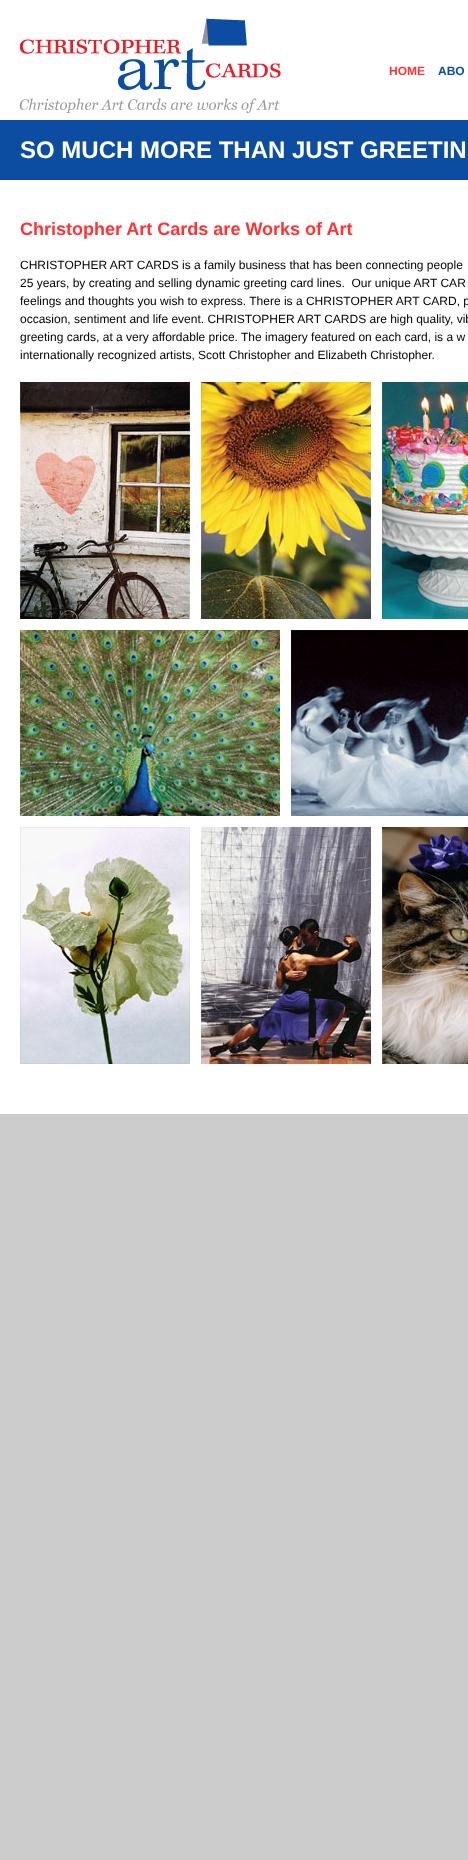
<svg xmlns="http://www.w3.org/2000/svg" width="468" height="1860">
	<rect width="100%" height="100%" fill="#CCCCCC" />
	<rect x="0" y="0" width="468" height="1114" fill="#FFFFFF" />
	<image x="19" y="18" width="262" height="95" href="assets/img1.png" />
	<text x="389" y="75" font-family="Liberation Sans" font-size="12" font-weight="700" fill="#FF3333">HOME</text>
	<text x="438" y="75" font-family="Liberation Sans" font-size="12" font-weight="700" fill="#0C4DA2">ABO</text>
	<rect x="0" y="120" width="468" height="60" fill="#0C4DA2" />
	<text x="20" y="158" font-family="Liberation Sans" font-size="24" font-weight="700" fill="#FFFFFF">SO MUCH MORE THAN JUST GREETIN</text>
	<text x="20" y="235" font-family="Liberation Sans" font-size="18" font-weight="700" fill="#FF3333">Christopher Art Cards are Works of Art</text>
	<g font-family="Liberation Sans" font-size="12" fill="#000000">
		<text x="20" y="269">CHRISTOPHER ART CARDS is a family business that has been connecting people</text>
		<text x="20" y="287" xml:space="preserve">25 years, by creating and selling dynamic greeting card lines.  Our unique ART CAR</text>
		<text x="20" y="305">feelings and thoughts you wish to express. There is a CHRISTOPHER ART CARD, p</text>
		<text x="20" y="323">occasion, sentiment and life event. CHRISTOPHER ART CARDS are high quality, vib</text>
		<text x="20" y="341">greeting cards, at a very affordable price. The imagery featured on each card, is a w</text>
		<text x="20" y="359">internationally recognized artists, Scott Christopher and Elizabeth Christopher.</text>
	</g>
	<image x="20" y="382" width="170" height="237" href="assets/img2.png" />
	<image x="201" y="382" width="170" height="237" href="assets/img3.png" />
	<image x="382" y="382" width="86" height="237" href="assets/img4.png" />
	<image x="20" y="630" width="260" height="186" href="assets/img5.png" />
	<image x="291" y="630" width="177" height="186" href="assets/img6.png" />
	<image x="20" y="827" width="170" height="237" href="assets/img7.png" />
	<image x="201" y="827" width="170" height="237" href="assets/img8.png" />
	<image x="382" y="827" width="86" height="237" href="assets/img9.png" />
</svg>
